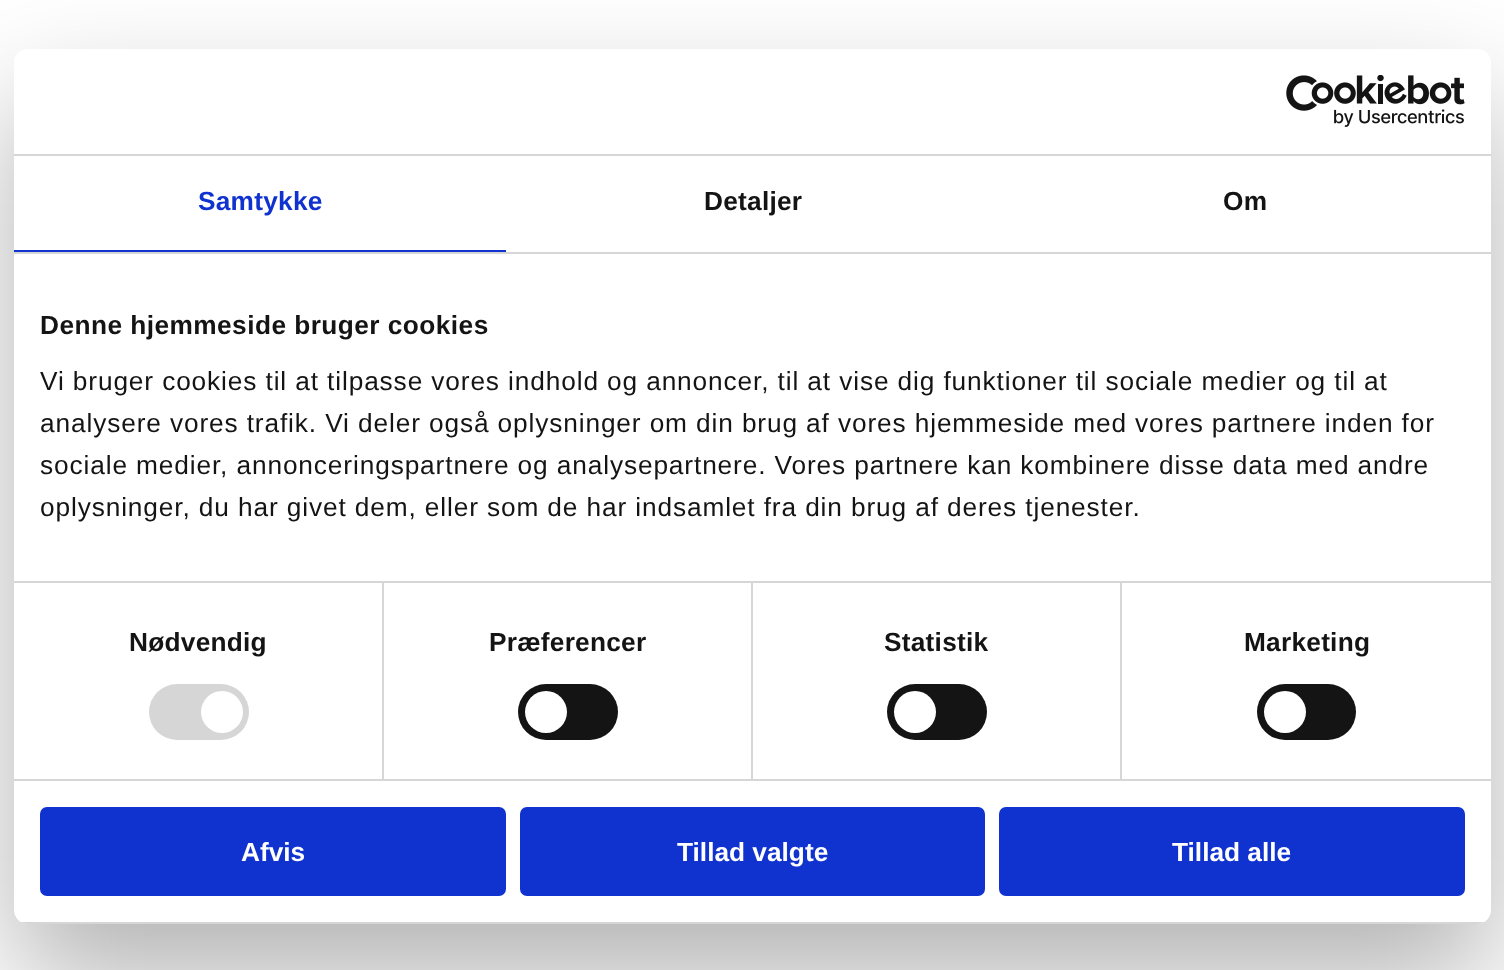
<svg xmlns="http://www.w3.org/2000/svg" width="1504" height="970">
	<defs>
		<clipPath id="clip1"><rect x="14" y="49" width="1477" height="875" rx="14" /></clipPath>
	</defs>
	<rect width="100%" height="100%" fill="#FFFFFF" />
	<rect x="14" y="105" width="1477" height="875" rx="14" fill="#000000" fill-opacity="0.3" filter="blur(59.5px)" />
	<rect x="14" y="49" width="1477" height="875" rx="14" fill="#FFFFFF" />
	<rect x="14" y="154" width="1477" height="2" fill="#D6D6D6" />
	<image x="1286" y="75" width="179" height="52" href="assets/img1.png" />
	<rect x="14" y="252" width="1477" height="2" fill="#D6D6D6" />
	<rect x="14" y="250" width="492" height="2" fill="#1032CF" />
	<text x="198" y="210" font-family="Liberation Sans" font-size="26.25" font-weight="700" letter-spacing="0.25" fill="#1032CF">Samtykke</text>
	<g font-family="Liberation Sans" font-size="26.25" font-weight="700" letter-spacing="0.25" fill="#141414">
		<text x="704" y="210">Detaljer</text>
		<text x="1223" y="210">Om</text>
	</g>
	<rect x="14" y="581" width="1477" height="2" fill="#D6D6D6" />
	<text x="40" y="334" font-family="Liberation Sans" font-size="26.25" font-weight="700" letter-spacing="0.45" fill="#141414">Denne hjemmeside bruger cookies</text>
	<g font-family="Liberation Sans" font-size="26.25" letter-spacing="0.88" fill="#141414">
		<text x="40" y="390">Vi bruger cookies til at tilpasse vores indhold og annoncer, til at vise dig funktioner til sociale medier og til at</text>
		<text x="40" y="432">analysere vores trafik. Vi deler også oplysninger om din brug af vores hjemmeside med vores partnere inden for</text>
		<text x="40" y="474">sociale medier, annonceringspartnere og analysepartnere. Vores partnere kan kombinere disse data med andre</text>
		<text x="40" y="516">oplysninger, du har givet dem, eller som de har indsamlet fra din brug af deres tjenester.</text>
	</g>
	<rect x="14" y="779" width="1477" height="2" fill="#D6D6D6" />
	<rect x="382" y="583" width="2" height="196" fill="#D6D6D6" />
	<text x="129" y="651" font-family="Liberation Sans" font-size="26.25" font-weight="700" letter-spacing="0.25" fill="#141414">Nødvendig</text>
	<rect x="149" y="684" width="100" height="56" rx="28" fill="#D6D6D6" />
	<circle cx="222" cy="712" r="21" fill="#FFFFFF" />
	<rect x="751" y="583" width="2" height="196" fill="#D6D6D6" />
	<text x="489" y="651" font-family="Liberation Sans" font-size="26.25" font-weight="700" letter-spacing="0.25" fill="#141414">Præferencer</text>
	<rect x="518" y="684" width="100" height="56" rx="28" fill="#141414" />
	<circle cx="546" cy="712" r="21" fill="#FFFFFF" />
	<rect x="1120" y="583" width="2" height="196" fill="#D6D6D6" />
	<text x="884" y="651" font-family="Liberation Sans" font-size="26.25" font-weight="700" letter-spacing="0.25" fill="#141414">Statistik</text>
	<rect x="887" y="684" width="100" height="56" rx="28" fill="#141414" />
	<circle cx="915" cy="712" r="21" fill="#FFFFFF" />
	<text x="1244" y="651" font-family="Liberation Sans" font-size="26.25" font-weight="700" letter-spacing="0.25" fill="#141414">Marketing</text>
	<rect x="1257" y="684" width="99" height="56" rx="28" fill="#141414" />
	<circle cx="1285" cy="712" r="21" fill="#FFFFFF" />
	<g clip-path="url(#clip1)">
		<rect x="14" y="922" width="1477" height="2" fill="#D6D6D6" />
	</g>
	<rect x="42" y="809" width="462" height="85" rx="5" fill="#1032CF" stroke="#1032CF" stroke-width="4" />
	<text x="241" y="861" font-family="Liberation Sans" font-size="26.25" font-weight="700" fill="#FFFFFF">Afvis</text>
	<rect x="522" y="809" width="461" height="85" rx="5" fill="#1032CF" stroke="#1032CF" stroke-width="4" />
	<text x="677" y="861" font-family="Liberation Sans" font-size="26.25" font-weight="700" fill="#FFFFFF">Tillad valgte</text>
	<rect x="1001" y="809" width="462" height="85" rx="5" fill="#1032CF" stroke="#1032CF" stroke-width="4" />
	<text x="1172" y="861" font-family="Liberation Sans" font-size="26.25" font-weight="700" fill="#FFFFFF">Tillad alle</text>
</svg>
